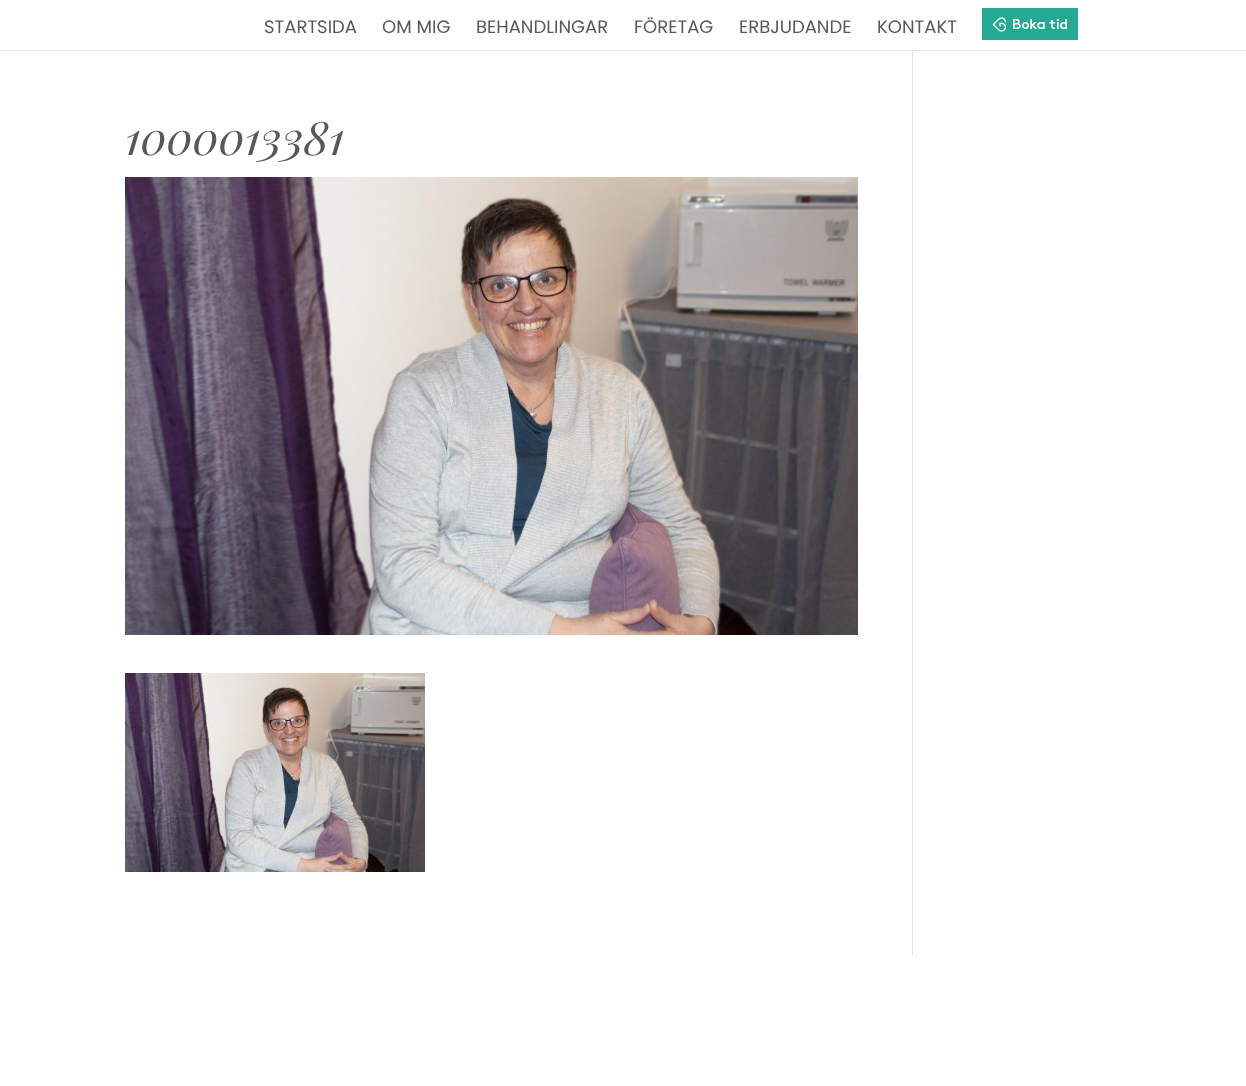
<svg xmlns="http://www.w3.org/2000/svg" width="1246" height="1086">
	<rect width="100%" height="100%" fill="#FFFFFF" />
	<rect x="0" y="50" width="1246" height="1" fill="#E6E6E6" />
	<rect x="912" y="49" width="1" height="906" fill="#E2E2E2" />
	<rect x="912" y="49" width="1" height="1" fill="#FFFFFF" />
	<g font-family="Poppins" font-size="18" fill="#585858">
		<text x="264" y="33">STARTSIDA</text>
		<text x="382" y="33">OM MIG</text>
		<text x="476" y="33">BEHANDLINGAR</text>
		<text x="634" y="33">FÖRETAG</text>
		<text x="739" y="33">ERBJUDANDE</text>
		<text x="877" y="33">KONTAKT</text>
	</g>
	<image x="982" y="8" width="96" height="32" href="assets/img1.png" />
	<text x="125" y="155" font-family="Playfair Display" font-size="46" font-style="italic" fill="#585858">1000013381</text>
	<image x="125" y="177" width="733" height="458" href="assets/img2.png" />
	<image x="125" y="673" width="300" height="199" href="assets/img3.png" />
	<rect x="912" y="50" width="1" height="1" fill="#CBCBCB" />
</svg>
